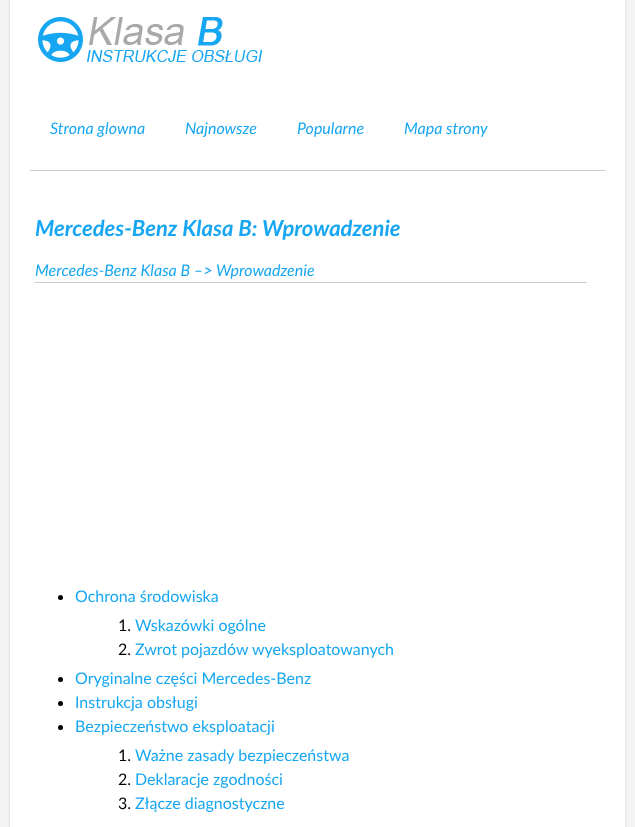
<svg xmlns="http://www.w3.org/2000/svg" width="635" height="827">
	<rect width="100%" height="100%" fill="#F4F4F4" />
	<rect x="10" y="0" width="615" height="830" fill="#CCCCCC" filter="blur(1px)" />
	<rect x="10" y="0" width="615" height="827" fill="#FFFFFF" />
	<rect x="30" y="170" width="575" height="1" fill="#CCCCCC" />
	<image x="38" y="17" width="225" height="45" href="assets/img1.png" />
	<g font-family="Lato" font-size="16" font-style="italic" fill="#17A7F2">
		<text x="50" y="134">Strona glowna</text>
		<text x="185" y="134">Najnowsze</text>
		<text x="297" y="134">Popularne</text>
		<text x="404" y="134">Mapa strony</text>
	</g>
	<text x="35" y="236" font-family="Lato" font-size="22" font-weight="700" font-style="italic" fill="#17A7F2">Mercedes-Benz Klasa B: Wprowadzenie</text>
	<rect x="35" y="282" width="552" height="1" fill="#CCCCCC" />
	<text x="35" y="276" font-family="Lato" font-size="16" font-style="italic" fill="#17A7F2">Mercedes-Benz Klasa B –&gt; Wprowadzenie</text>
	<circle cx="60.5" cy="597.5" r="2.5" fill="#000000" />
	<text x="75" y="602" font-family="Lato" font-size="16" fill="#17A7F2">Ochrona środowiska</text>
	<text x="118" y="631" font-family="Lato" font-size="16" fill="#000000">1.</text>
	<text x="135" y="631" font-family="Lato" font-size="16" fill="#17A7F2">Wskazówki ogólne</text>
	<text x="118" y="655" font-family="Lato" font-size="16" fill="#000000">2.</text>
	<text x="135" y="655" font-family="Lato" font-size="16" fill="#17A7F2">Zwrot pojazdów wyeksploatowanych</text>
	<circle cx="60.5" cy="679.5" r="2.5" fill="#000000" />
	<text x="75" y="684" font-family="Lato" font-size="16" fill="#17A7F2">Oryginalne części Mercedes-Benz</text>
	<circle cx="60.5" cy="703.5" r="2.5" fill="#000000" />
	<text x="75" y="708" font-family="Lato" font-size="16" fill="#17A7F2">Instrukcja obsługi</text>
	<circle cx="60.5" cy="727.5" r="2.5" fill="#000000" />
	<text x="75" y="732" font-family="Lato" font-size="16" fill="#17A7F2">Bezpieczeństwo eksploatacji</text>
	<text x="118" y="761" font-family="Lato" font-size="16" fill="#000000">1.</text>
	<text x="135" y="761" font-family="Lato" font-size="16" fill="#17A7F2">Ważne zasady bezpieczeństwa</text>
	<text x="118" y="785" font-family="Lato" font-size="16" fill="#000000">2.</text>
	<text x="135" y="785" font-family="Lato" font-size="16" fill="#17A7F2">Deklaracje zgodności</text>
	<text x="118" y="809" font-family="Lato" font-size="16" fill="#000000">3.</text>
	<text x="135" y="809" font-family="Lato" font-size="16" fill="#17A7F2">Złącze diagnostyczne</text>
</svg>
